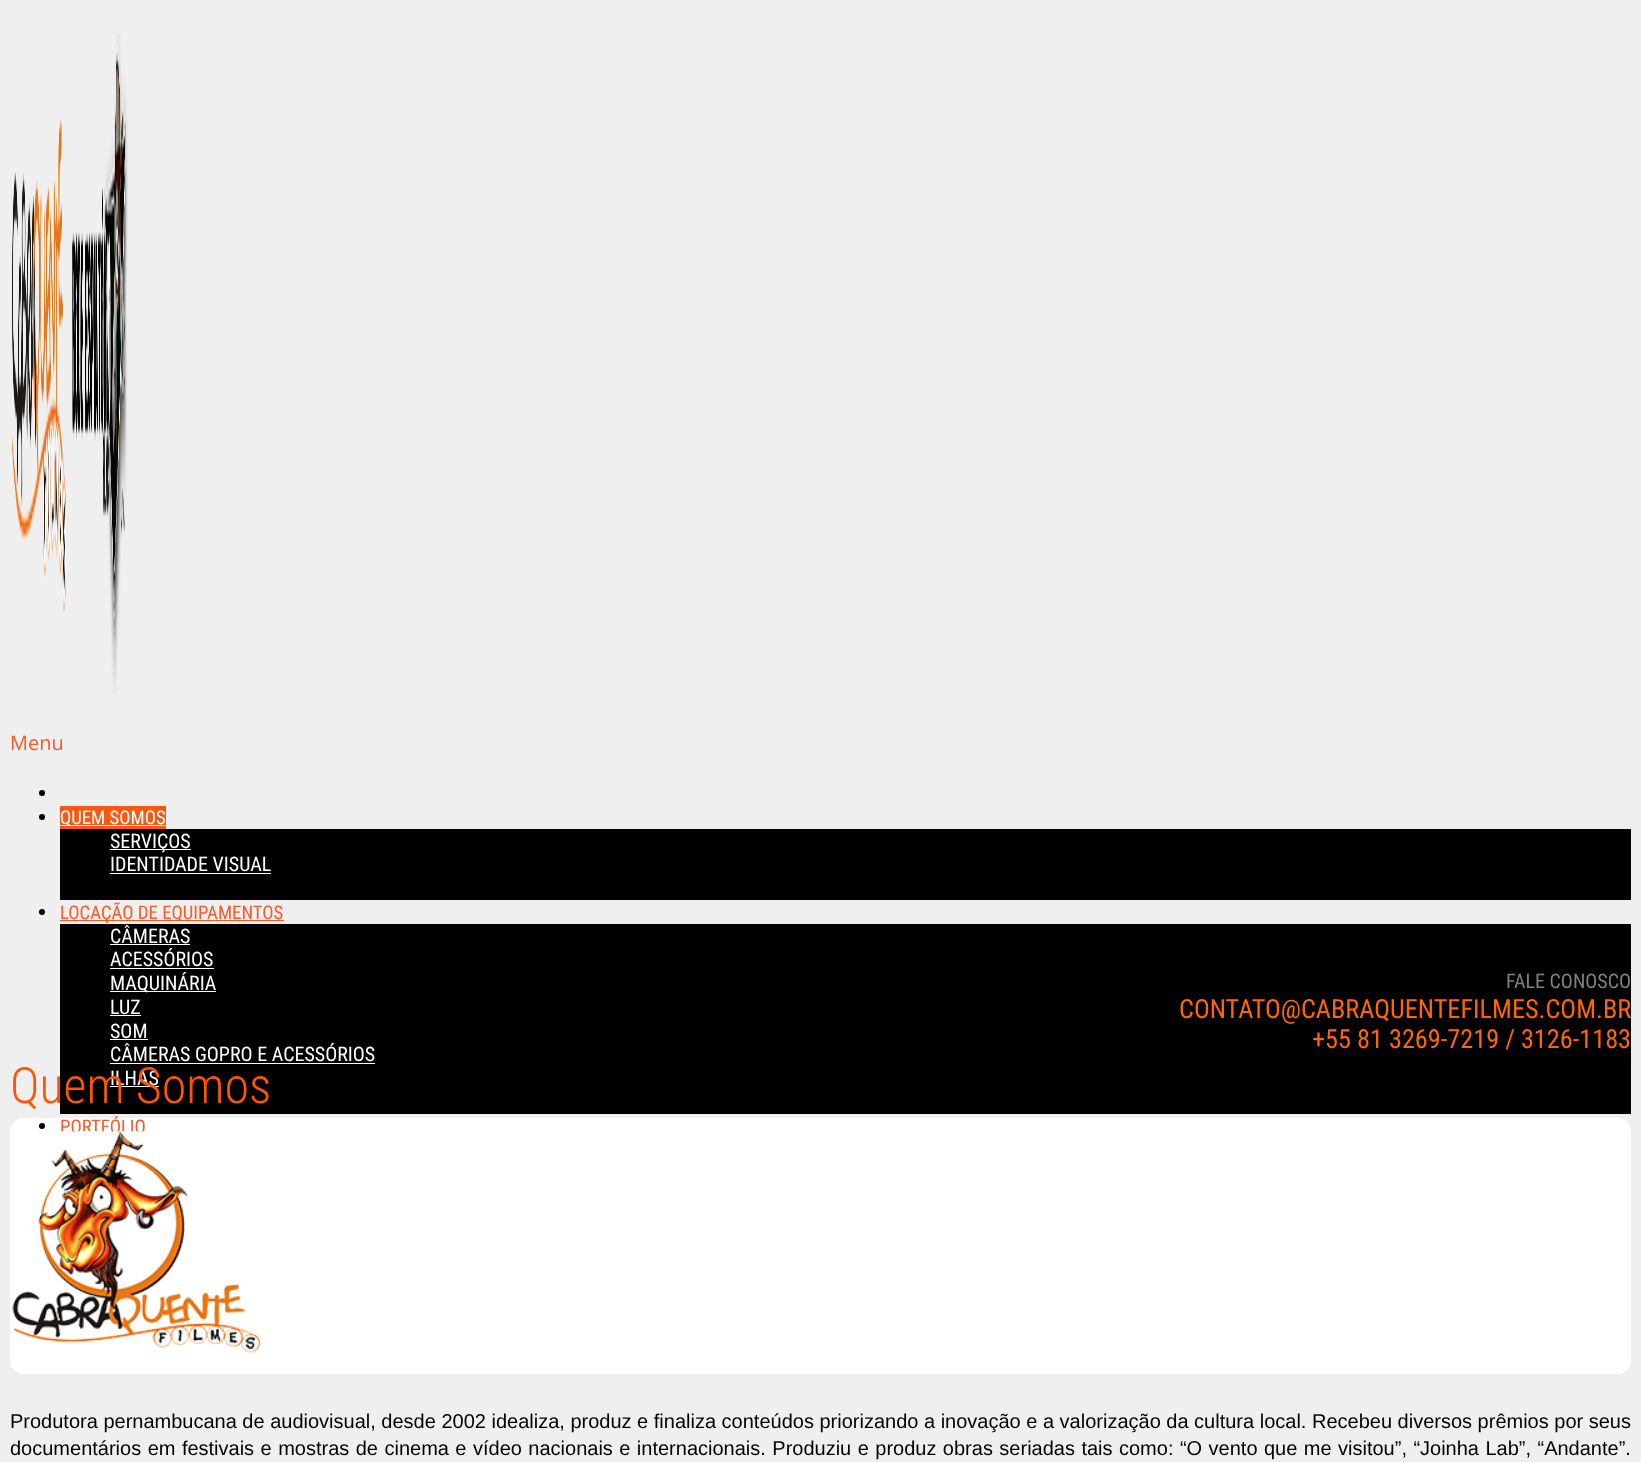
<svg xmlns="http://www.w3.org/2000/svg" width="1641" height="1462">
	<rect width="100%" height="100%" fill="#EFEFEF" />
	<image x="12" y="33" width="116" height="661" href="assets/img1.png" />
	<text x="10" y="750" font-family="Open Sans" font-size="20" fill="#F95827">Menu</text>
	<circle cx="42" cy="793" r="3" fill="#000000" />
	<circle cx="42" cy="817" r="3" fill="#000000" />
	<rect x="60" y="806" width="106" height="23" fill="#F95813" />
	<rect x="60" y="825" width="106" height="1" fill="#FFFFFF" />
	<text x="60" y="824" font-family="Roboto Condensed" font-size="18.75" fill="#FFFFFF">QUEM SOMOS</text>
	<rect x="60" y="829" width="1571" height="71" fill="#000000" />
	<rect x="110" y="849" width="81" height="1" fill="#FFFFFF" />
	<g font-family="Roboto Condensed" font-size="20" fill="#FFFFFF">
		<text x="110" y="848">SERVIÇOS</text>
		<text x="110" y="871">IDENTIDADE VISUAL</text>
	</g>
	<rect x="110" y="873" width="161" height="1" fill="#FFFFFF" />
	<circle cx="42" cy="912" r="3" fill="#000000" />
	<rect x="60" y="920" width="224" height="1" fill="#F95827" />
	<text x="60" y="919" font-family="Roboto Condensed" font-size="18.75" fill="#F95827">LOCAÇÃO DE EQUIPAMENTOS</text>
	<rect x="60" y="924" width="1571" height="190" fill="#000000" />
	<text x="110" y="943" font-family="Roboto Condensed" font-size="20" fill="#FFFFFF">CÂMERAS</text>
	<rect x="110" y="944" width="80" height="1" fill="#FFFFFF" />
	<text x="110" y="966" font-family="Roboto Condensed" font-size="20" fill="#FFFFFF">ACESSÓRIOS</text>
	<rect x="110" y="968" width="104" height="1" fill="#FFFFFF" />
	<rect x="110" y="991" width="106" height="1" fill="#FFFFFF" />
	<g font-family="Roboto Condensed" font-size="20" fill="#FFFFFF">
		<text x="110" y="990">MAQUINÁRIA</text>
		<text x="110" y="1014">LUZ</text>
	</g>
	<rect x="110" y="1015" width="31" height="1" fill="#FFFFFF" />
	<text x="110" y="1038" font-family="Roboto Condensed" font-size="20" fill="#FFFFFF">SOM</text>
	<rect x="110" y="1039" width="38" height="1" fill="#FFFFFF" />
	<text x="110" y="1061" font-family="Roboto Condensed" font-size="20" fill="#FFFFFF">CÂMERAS GOPRO E ACESSÓRIOS</text>
	<rect x="110" y="1063" width="265" height="1" fill="#FFFFFF" />
	<text x="110" y="1085" font-family="Roboto Condensed" font-size="20" fill="#FFFFFF">ILHAS</text>
	<rect x="110" y="1086" width="49" height="1" fill="#FFFFFF" />
	<rect x="10.5" y="1118.5" width="1620" height="255" rx="12.5" fill="#FFFFFF" stroke="#FFFFFF" />
	<circle cx="42" cy="1126" r="3" fill="#000000" />
	<text x="60" y="1133" font-family="Roboto Condensed" font-size="18.75" fill="#F95827">PORTFÓLIO</text>
	<text x="1506" y="988" font-family="Roboto Condensed" font-size="20" fill="#808080">FALE CONOSCO</text>
	<g font-family="Roboto Condensed" font-size="26.25" fill="#FF6600">
		<text x="1179" y="1018">CONTATO@CABRAQUENTEFILMES.COM.BR</text>
		<text x="1312" y="1048">+55 81 3269-7219 / 3126-1183</text>
	</g>
	<text x="10" y="1103" font-family="Roboto Condensed" font-size="50" font-weight="300" fill="#FF5400">Quem Somos</text>
	<image x="12" y="1131" width="249" height="222" href="assets/img2.png" />
	<g font-family="Liberation Sans" font-size="20" fill="#000000">
		<text x="10" y="1428">Produtora pernambucana de audiovisual, desde 2002 idealiza, produz e finaliza conteúdos priorizando a inovação e a valorização da cultura local. Recebeu diversos prêmios por seus</text>
		<text x="10" y="1455" word-spacing="0.9">documentários em festivais e mostras de cinema e vídeo nacionais e internacionais. Produziu e produz obras seriadas tais como: “O vento que me visitou”, “Joinha Lab”, “Andante”.</text>
	</g>
</svg>
